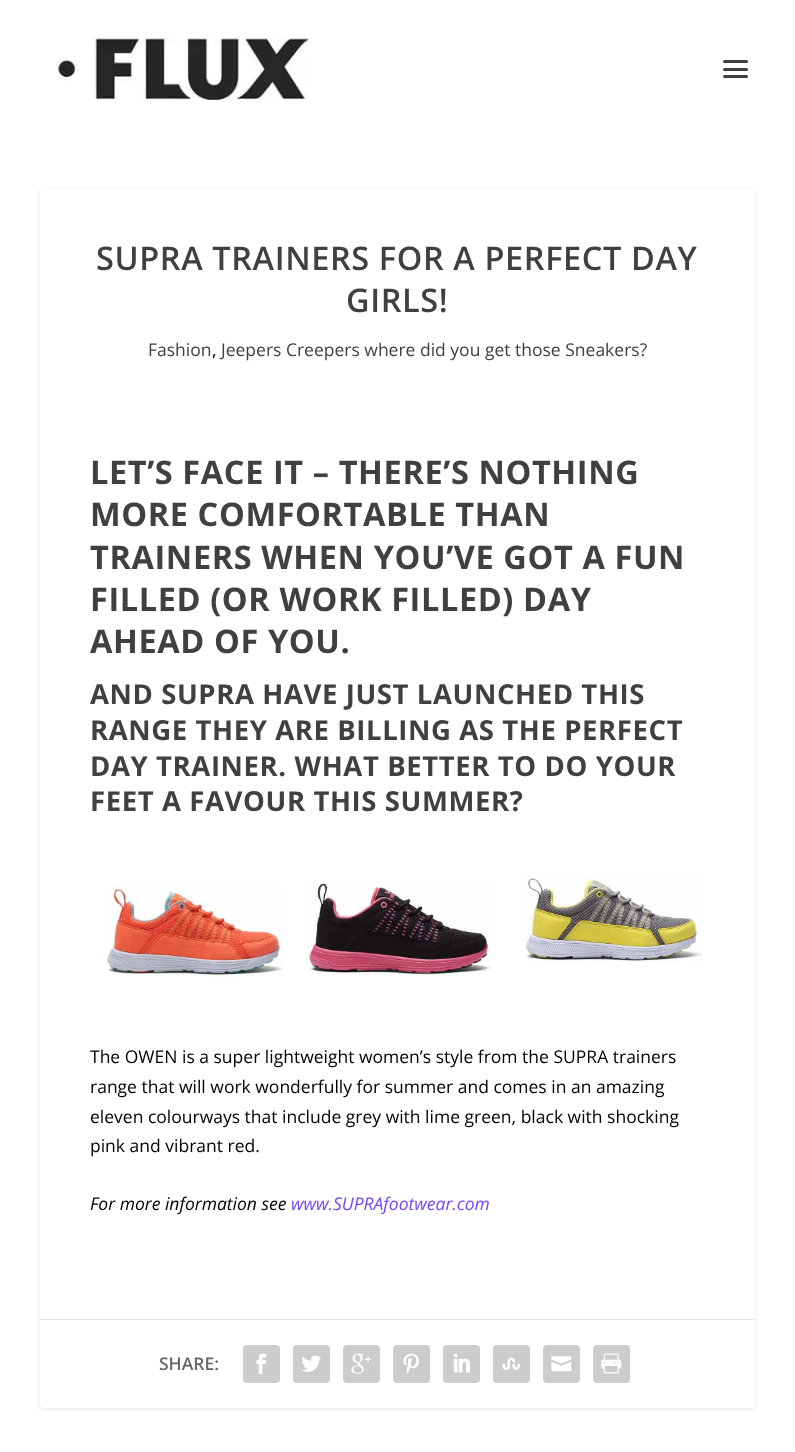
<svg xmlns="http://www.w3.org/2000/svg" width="795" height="1452">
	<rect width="100%" height="100%" fill="#FFFFFF" />
	<image x="56" y="37" width="254" height="63" href="assets/img1.png" />
	<rect x="723" y="60" width="25" height="3" rx="1.5" fill="#404040" />
	<rect x="723" y="68" width="25" height="3" rx="1.5" fill="#404040" />
	<rect x="723" y="75" width="25" height="3" rx="1.5" fill="#404040" />
	<rect x="40" y="189" width="715" height="1220" rx="4" fill="#000000" fill-opacity="0.1" filter="blur(2px)" />
	<rect x="40" y="188" width="715" height="1220" rx="4" fill="#FFFFFF" />
	<g font-family="Open Sans" font-size="32.5" font-weight="600" letter-spacing="0.6" fill="#404040">
		<text x="96" y="270">SUPRA TRAINERS FOR A PERFECT DAY</text>
		<text x="346" y="312">GIRLS!</text>
	</g>
	<text x="148" y="356" font-family="Open Sans" font-size="17.5" fill="#404040">Fashion</text>
	<text x="212" y="356" font-family="Open Sans" font-size="17.5" fill="#000000">,</text>
	<text x="221" y="356" font-family="Open Sans" font-size="17.5" fill="#404040">Jeepers Creepers where did you get those Sneakers?</text>
	<g font-family="Open Sans" font-size="32.5" font-weight="700" letter-spacing="0.6" fill="#404040">
		<text x="90" y="484">LET’S FACE IT – THERE’S NOTHING</text>
		<text x="90" y="526">MORE COMFORTABLE THAN</text>
		<text x="90" y="569">TRAINERS WHEN YOU’VE GOT A FUN</text>
		<text x="90" y="611">FILLED (OR WORK FILLED) DAY</text>
		<text x="90" y="653">AHEAD OF YOU.</text>
	</g>
	<g font-family="Open Sans" font-size="27.5" font-weight="700" letter-spacing="0.6" fill="#404040">
		<text x="90" y="704">AND SUPRA HAVE JUST LAUNCHED THIS</text>
		<text x="90" y="740">RANGE THEY ARE BILLING AS THE PERFECT</text>
		<text x="90" y="776">DAY TRAINER. WHAT BETTER TO DO YOUR</text>
		<text x="90" y="811">FEET A FAVOUR THIS SUMMER?</text>
	</g>
	<image x="107" y="886" width="176" height="91" href="assets/img2.png" />
	<image x="308" y="883" width="183" height="92" href="assets/img3.png" />
	<image x="525" y="875" width="178" height="88" href="assets/img4.png" />
	<g font-family="Open Sans" font-size="17.5" fill="#000000">
		<text x="90" y="1063">The OWEN is a super lightweight women’s style from the SUPRA trainers</text>
		<text x="90" y="1093">range that will work wonderfully for summer and comes in an amazing</text>
		<text x="90" y="1123">eleven colourways that include grey with lime green, black with shocking</text>
		<text x="90" y="1152">pink and vibrant red.</text>
	</g>
	<text x="90" y="1210" font-family="Open Sans" font-size="17.5" font-style="italic" fill="#000000">For more information see</text>
	<text x="291" y="1210" font-family="Open Sans" font-size="17.5" font-style="italic" fill="#7345FD">www.SUPRAfootwear.com</text>
	<rect x="40" y="1319" width="715" height="1" fill="#E6E6E6" />
	<text x="159" y="1370" font-family="Open Sans" font-size="17.5" font-weight="600" fill="#666666">SHARE:</text>
	<rect x="243" y="1345" width="37" height="38" rx="4" fill="#CCCCCC" />
	<image x="256" y="1353" width="11" height="21" href="assets/img5.png" />
	<rect x="293" y="1345" width="37" height="38" rx="4" fill="#CCCCCC" />
	<image x="301" y="1355" width="20" height="17" href="assets/img6.png" />
	<rect x="343" y="1345" width="37" height="38" rx="4" fill="#CCCCCC" />
	<image x="351" y="1353" width="21" height="21" href="assets/img7.png" />
	<rect x="393" y="1345" width="37" height="38" rx="4" fill="#CCCCCC" />
	<image x="403" y="1353" width="16" height="21" href="assets/img8.png" />
	<rect x="443" y="1345" width="37" height="38" rx="4" fill="#CCCCCC" />
	<image x="453" y="1353" width="17" height="20" href="assets/img9.png" />
	<rect x="493" y="1345" width="37" height="38" rx="4" fill="#CCCCCC" />
	<image x="502" y="1357" width="18" height="13" href="assets/img10.png" />
	<rect x="543" y="1345" width="37" height="38" rx="4" fill="#CCCCCC" />
	<image x="551" y="1356" width="21" height="16" href="assets/img11.png" />
	<rect x="593" y="1345" width="37" height="38" rx="4" fill="#CCCCCC" />
	<image x="601" y="1353" width="21" height="21" href="assets/img12.png" />
</svg>
